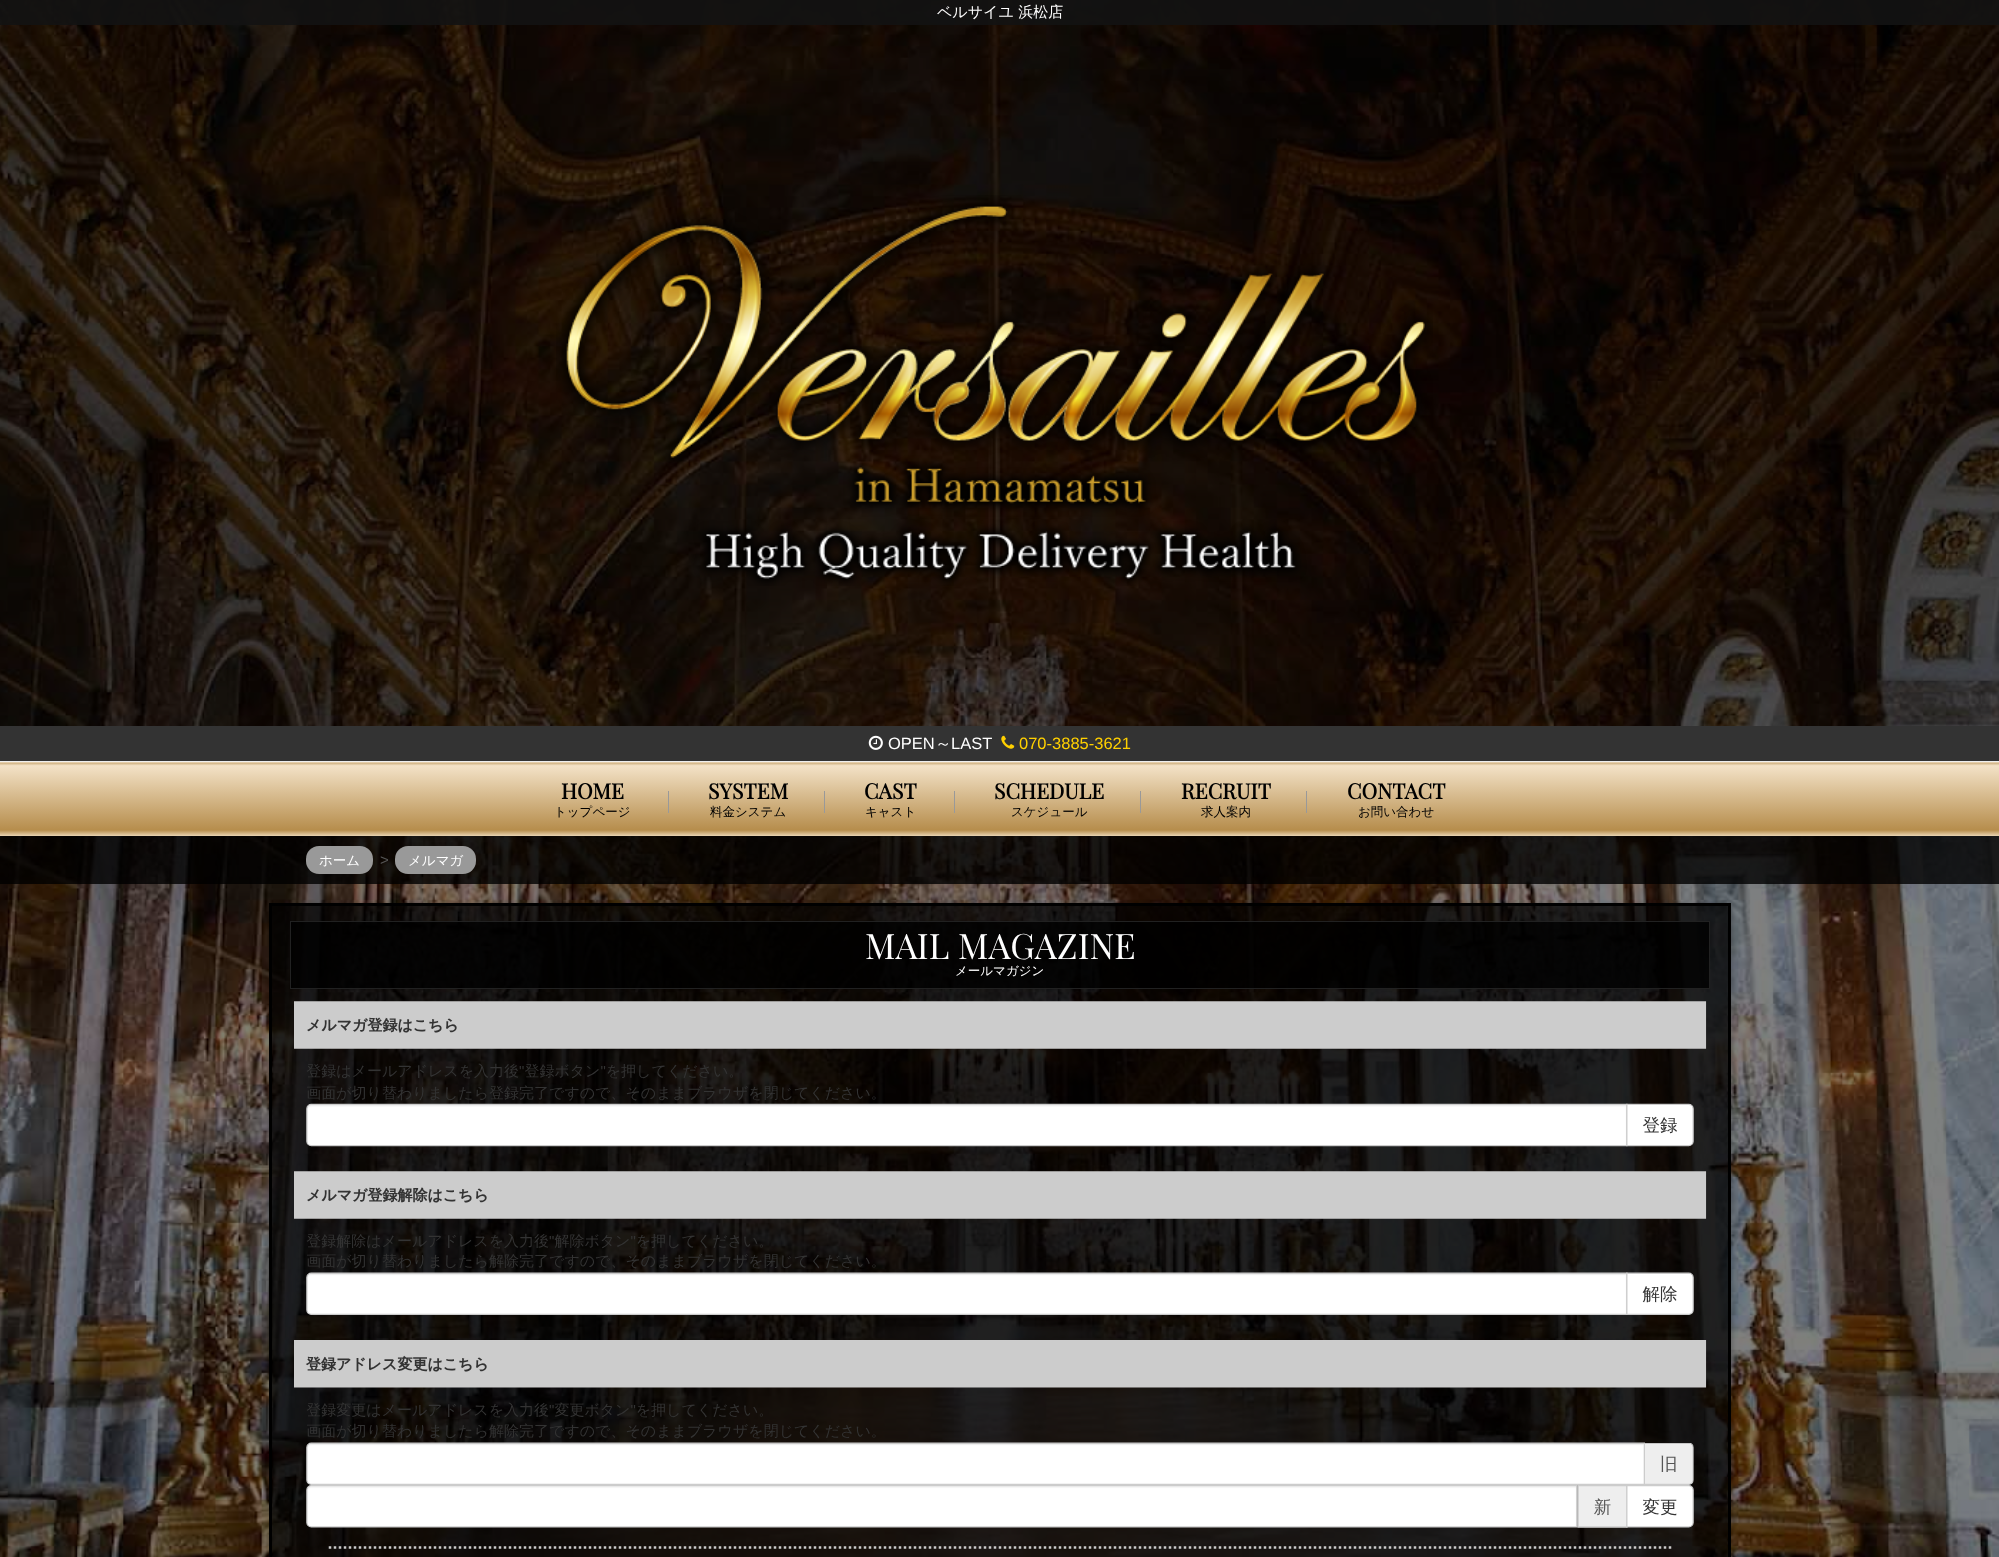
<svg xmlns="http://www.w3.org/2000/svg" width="1999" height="1557">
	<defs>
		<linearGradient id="g1" gradientUnits="userSpaceOnUse" x1="1000" y1="689" x2="1000" y2="763"><stop offset="0" stop-color="#C19E67" /><stop offset="0.05" stop-color="#F3E2C7" /><stop offset="0.92" stop-color="#B68D4C" /><stop offset="1" stop-color="#E9D4B3" /></linearGradient>
		<linearGradient id="g2" gradientUnits="userSpaceOnUse" x1="1000" y1="762" x2="1000" y2="836"><stop offset="0" stop-color="#C19E67" /><stop offset="0.05" stop-color="#F3E2C7" /><stop offset="0.92" stop-color="#B68D4C" /><stop offset="1" stop-color="#E9D4B3" /></linearGradient>
		<clipPath id="clip1"><path d="M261 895H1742V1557H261ZM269 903H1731V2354H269Z" clip-rule="evenodd" /></clipPath>
	</defs>
	<rect width="100%" height="100%" fill="#000000" />
	<image x="0" y="0" width="1999" height="1557" href="assets/img1.png" />
	<rect x="0" y="0" width="1999" height="726" fill="#000000" fill-opacity="0.4" />
	<rect x="0" y="0" width="1999" height="25" fill="#131313" fill-opacity="0.9" />
	<text x="937" y="17" font-family="WenQuanYi Zen Hei" font-size="15" font-weight="500" fill="#FFFFFF">ベルサイユ 浜松店</text>
	<image x="556" y="195" width="877" height="391" href="assets/img2.png" />
	<rect x="0" y="726" width="1999" height="35" fill="#333333" />
	<image x="868" y="735" width="15" height="15" href="assets/img3.png" />
	<text x="888" y="749" font-family="Liberation Sans" font-size="16.5" fill="#FFFFFF">OPEN</text>
	<text x="935" y="749" font-family="WenQuanYi Zen Hei" font-size="16.5" font-weight="500" fill="#FFFFFF">～</text>
	<text x="951" y="749" font-family="Liberation Sans" font-size="16.5" fill="#FFFFFF">LAST</text>
	<image x="1001" y="735" width="14" height="14" href="assets/img4.png" />
	<text x="1019" y="749" font-family="Liberation Sans" font-size="16.5" fill="#FFD000">070-3885-3621</text>
	<rect x="0" y="762" width="1999" height="1" fill="url(#g1)" />
	<rect x="0" y="763" width="1999" height="73" fill="url(#g2)" />
	<rect x="0" y="761" width="1999" height="1" fill="#EEEEEE" />
	<text x="561" y="799" font-family="Playfair Display" font-size="21.25" font-weight="700" fill="#000000">HOME</text>
	<text x="554" y="816" font-family="WenQuanYi Zen Hei" font-size="12.5" font-weight="500" fill="#000000">トップページ</text>
	<rect x="668" y="791" width="1" height="22" fill="#999999" />
	<text x="708" y="799" font-family="Playfair Display" font-size="21.25" font-weight="700" fill="#000000">SYSTEM</text>
	<text x="710" y="816" font-family="WenQuanYi Zen Hei" font-size="12.5" font-weight="500" fill="#000000">料金システム</text>
	<rect x="824" y="791" width="1" height="22" fill="#999999" />
	<text x="864" y="799" font-family="Playfair Display" font-size="21.25" font-weight="700" fill="#000000">CAST</text>
	<text x="865" y="816" font-family="WenQuanYi Zen Hei" font-size="12.5" font-weight="500" fill="#000000">キャスト</text>
	<rect x="954" y="791" width="1" height="22" fill="#999999" />
	<text x="994" y="799" font-family="Playfair Display" font-size="21.25" font-weight="700" fill="#000000">SCHEDULE</text>
	<text x="1011" y="816" font-family="WenQuanYi Zen Hei" font-size="12.5" font-weight="500" fill="#000000">スケジュール</text>
	<rect x="1140" y="791" width="1" height="22" fill="#999999" />
	<text x="1181" y="799" font-family="Playfair Display" font-size="21.25" font-weight="700" fill="#000000">RECRUIT</text>
	<text x="1201" y="816" font-family="WenQuanYi Zen Hei" font-size="12.5" font-weight="500" fill="#000000">求人案内</text>
	<rect x="1306" y="791" width="1" height="22" fill="#999999" />
	<text x="1347" y="799" font-family="Playfair Display" font-size="21.25" font-weight="700" fill="#000000">CONTACT</text>
	<text x="1358" y="816" font-family="WenQuanYi Zen Hei" font-size="12.5" font-weight="500" fill="#000000">お問い合わせ</text>
	<rect x="0" y="836" width="1999" height="48" fill="#000000" fill-opacity="0.8" />
	<rect x="306" y="846" width="67" height="28" rx="13" fill="#999999" />
	<text x="319" y="865" font-family="WenQuanYi Zen Hei" font-size="13.5" font-weight="500" fill="#FFFFFF">ホーム</text>
	<text x="380" y="865" font-family="Liberation Sans" font-size="15" fill="#555555">&gt;</text>
	<rect x="395" y="846" width="81" height="28" rx="13" fill="#999999" />
	<text x="408" y="865" font-family="WenQuanYi Zen Hei" font-size="13.5" font-weight="500" fill="#FFFFFF">メルマガ</text>
	<g clip-path="url(#clip1)">
		<rect x="270" y="904" width="1463" height="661" fill="#000000" fill-opacity="0.2" filter="blur(2.5px)" />
	</g>
	<rect x="270.5" y="904.5" width="1459" height="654" fill="#000000" fill-opacity="0.75" stroke="#000000" stroke-width="3" />
	<rect x="290.5" y="921.5" width="1419" height="67" fill="#000000" fill-opacity="0.8" stroke="#212121" />
	<text x="865" y="959" font-family="Playfair Display" font-size="35" fill="#FFFFFF">MAIL MAGAZINE</text>
	<text x="955" y="975" font-family="WenQuanYi Zen Hei" font-size="12.5" font-weight="500" fill="#FFFFFF">メールマガジン</text>
	<image x="294" y="1001" width="1413" height="548" href="assets/img5.png" />
</svg>
